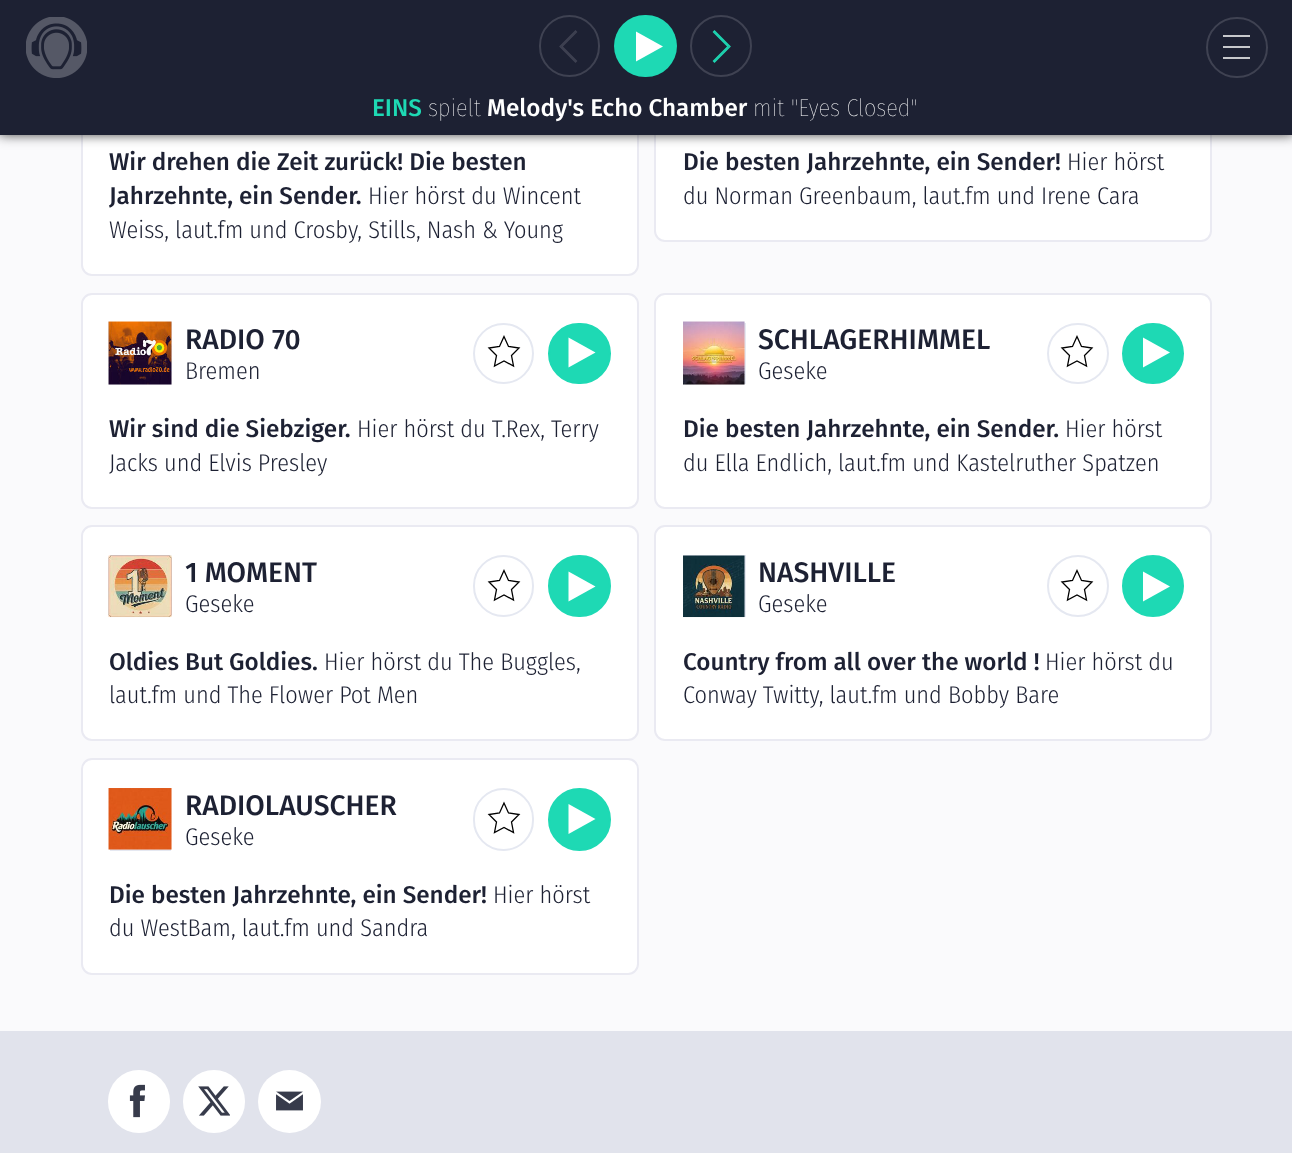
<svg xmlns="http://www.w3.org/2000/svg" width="1292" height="1153">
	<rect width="100%" height="100%" fill="#FAFAFC" />
	<rect x="82" y="27" width="556" height="248" rx="10" fill="#FFFFFF" stroke="#EAEAF2" stroke-width="2" />
	<rect x="655" y="27" width="556" height="214" rx="10" fill="#FFFFFF" stroke="#EAEAF2" stroke-width="2" />
	<rect x="-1" y="-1" width="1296" height="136" fill="#000000" fill-opacity="0.5" filter="blur(6.5px)" />
	<rect x="0" y="2" width="1290" height="130" fill="#000000" fill-opacity="0.5" filter="blur(5.5px)" />
	<rect x="0" y="0" width="1292" height="135" fill="#1D2133" />
	<image x="26" y="17" width="61" height="61" href="assets/img1.png" />
	<rect x="1207" y="18" width="60" height="59" rx="29.5" fill="none" stroke="#3F4252" stroke-width="2" />
	<rect x="1223" y="35" width="27" height="2" fill="#C7C8CC" />
	<rect x="1223" y="46" width="27" height="2" fill="#C7C8CC" />
	<rect x="1223" y="57" width="27" height="2" fill="#C7C8CC" />
	<rect x="540" y="16" width="59" height="60" rx="29.5" fill="none" stroke="#3F4252" stroke-width="2" />
	<path d="M562 46.5L576.5 61L575.5 62L560 46.5L575.5 31L576.5 32Z" fill="none" stroke="#3F4252" stroke-width="1.3" />
	<rect x="614" y="15" width="63" height="62" rx="31" fill="#1ED9B4" />
	<path d="M636 61.5V31.5L663 46.5Z" fill="#FFFFFF" />
	<circle cx="721" cy="46" r="30" fill="none" stroke="#3F4252" stroke-width="2" />
	<path d="M728 46.5L713.5 32L714.5 31L730 46.5L714.5 62L713.5 61Z" fill="none" stroke="#1ED9B4" stroke-width="1.3" />
	<text x="372" y="116" font-family="Fira Sans" font-size="24.25" font-weight="500" fill="#1ED9B4">EINS</text>
	<text x="428" y="116" font-family="Fira Sans Condensed" font-size="24.25" font-weight="200" fill="#FFFFFF">spielt</text>
	<text x="487" y="116" font-family="Fira Sans" font-size="24.25" font-weight="500" fill="#FFFFFF">Melody's Echo Chamber</text>
	<text x="753" y="116" font-family="Fira Sans Condensed" font-size="24.25" font-weight="200" fill="#FFFFFF">mit "Eyes Closed"</text>
	<g font-family="Fira Sans" font-size="24.25" font-weight="500" fill="#1D2133">
		<text x="109" y="170">Wir drehen die Zeit zurück! Die besten</text>
		<text x="109" y="204">Jahrzehnte, ein Sender.</text>
	</g>
	<g font-family="Fira Sans Condensed" font-size="24.25" font-weight="300" fill="#1D2133">
		<text x="368" y="204">Hier hörst du Wincent</text>
		<text x="109" y="238">Weiss, laut.fm und Crosby, Stills, Nash &amp; Young</text>
	</g>
	<text x="683" y="170" font-family="Fira Sans" font-size="24.25" font-weight="500" fill="#1D2133">Die besten Jahrzehnte, ein Sender!</text>
	<g font-family="Fira Sans Condensed" font-size="24.25" font-weight="300" fill="#1D2133">
		<text x="1067" y="170">Hier hörst</text>
		<text x="683" y="204">du Norman Greenbaum, laut.fm und Irene Cara</text>
	</g>
	<rect x="82" y="294" width="556" height="214" rx="10" fill="#FFFFFF" stroke="#EAEAF2" stroke-width="2" />
	<image x="108" y="321" width="64" height="64" href="assets/img2.png" />
	<text x="185" y="349" font-family="Fira Sans" font-size="28.25" font-weight="500" fill="#1D2133">RADIO 70</text>
	<text x="185" y="379" font-family="Fira Sans Condensed" font-size="24.25" font-weight="300" fill="#1D2133">Bremen</text>
	<circle cx="503.5" cy="353.5" r="29.5" fill="none" stroke="#E5E8F1" stroke-width="2" />
	<path d="M504 336.5L499.5 346.5L489 348L496.5 355.5L494.5 366L504 361L513.5 366L511.5 355.5L519 348L508.5 346.5Z" fill="none" stroke="#000000" stroke-width="1.3" />
	<rect x="549" y="324" width="61" height="59" rx="29.5" fill="#1ED9B4" stroke="#1ED9B4" stroke-width="2" />
	<path d="M568.5 367.5V337.5L595.5 352.5Z" fill="#FFFFFF" />
	<text x="109" y="437" font-family="Fira Sans" font-size="24.25" font-weight="500" fill="#1D2133">Wir sind die Siebziger.</text>
	<g font-family="Fira Sans Condensed" font-size="24.25" font-weight="300" fill="#1D2133">
		<text x="357" y="437">Hier hörst du T.Rex, Terry</text>
		<text x="109" y="471">Jacks und Elvis Presley</text>
	</g>
	<rect x="655" y="294" width="556" height="214" rx="10" fill="#FFFFFF" stroke="#EAEAF2" stroke-width="2" />
	<rect x="683" y="323" width="63" height="61" fill="#E5E8F1" />
	<image x="683" y="321" width="62" height="64" href="assets/img3.png" />
	<text x="758" y="349" font-family="Fira Sans" font-size="28.25" font-weight="500" fill="#1D2133">SCHLAGERHIMMEL</text>
	<text x="758" y="379" font-family="Fira Sans Condensed" font-size="24.25" font-weight="300" fill="#1D2133">Geseke</text>
	<rect x="1048" y="324" width="60" height="59" rx="29.5" fill="none" stroke="#E5E8F1" stroke-width="2" />
	<path d="M1077 336.5L1072.5 346.5L1062 348L1069.5 355.5L1067.5 366L1077 361L1086.5 366L1084.5 355.5L1092 348L1081.5 346.5Z" fill="none" stroke="#000000" stroke-width="1.3" />
	<rect x="1123" y="324" width="60" height="59" rx="29.5" fill="#1ED9B4" stroke="#1ED9B4" stroke-width="2" />
	<path d="M1143 367.5V337.5L1170 352.5Z" fill="#FFFFFF" />
	<text x="683" y="437" font-family="Fira Sans" font-size="24.25" font-weight="500" fill="#1D2133">Die besten Jahrzehnte, ein Sender.</text>
	<g font-family="Fira Sans Condensed" font-size="24.25" font-weight="300" fill="#1D2133">
		<text x="1065" y="437">Hier hörst</text>
		<text x="683" y="471">du Ella Endlich, laut.fm und Kastelruther Spatzen</text>
	</g>
	<rect x="82" y="526" width="556" height="214" rx="10" fill="#FFFFFF" stroke="#EAEAF2" stroke-width="2" />
	<rect x="110" y="555" width="61" height="1" fill="#E5E8F1" />
	<image x="108" y="555" width="64" height="63" href="assets/img4.png" />
	<text x="185" y="582" font-family="Fira Sans" font-size="28.25" font-weight="500" fill="#1D2133">1 MOMENT</text>
	<text x="185" y="612" font-family="Fira Sans Condensed" font-size="24.25" font-weight="300" fill="#1D2133">Geseke</text>
	<rect x="474" y="556" width="59" height="60" rx="29.5" fill="none" stroke="#E5E8F1" stroke-width="2" />
	<path d="M504 570.5L499.5 580.5L489 582L496.5 589.5L494.5 600L504 595L513.5 600L511.5 589.5L519 582L508.5 580.5Z" fill="none" stroke="#000000" stroke-width="1.3" />
	<rect x="549" y="556" width="61" height="60" rx="30" fill="#1ED9B4" stroke="#1ED9B4" stroke-width="2" />
	<path d="M568.5 601.5V571.5L595.5 586.5Z" fill="#FFFFFF" />
	<text x="109" y="670" font-family="Fira Sans" font-size="24.25" font-weight="500" fill="#1D2133">Oldies But Goldies.</text>
	<g font-family="Fira Sans Condensed" font-size="24.25" font-weight="300" fill="#1D2133">
		<text x="324" y="670">Hier hörst du The Buggles,</text>
		<text x="109" y="703">laut.fm und The Flower Pot Men</text>
	</g>
	<rect x="655" y="526" width="556" height="214" rx="10" fill="#FFFFFF" stroke="#EAEAF2" stroke-width="2" />
	<rect x="683" y="555" width="63" height="62" fill="#E5E8F1" />
	<image x="683" y="555" width="62" height="63" href="assets/img5.png" />
	<text x="758" y="582" font-family="Fira Sans" font-size="28.25" font-weight="500" fill="#1D2133">NASHVILLE</text>
	<text x="758" y="612" font-family="Fira Sans Condensed" font-size="24.25" font-weight="300" fill="#1D2133">Geseke</text>
	<circle cx="1078" cy="586" r="30" fill="none" stroke="#E5E8F1" stroke-width="2" />
	<path d="M1077 570.5L1072.5 580.5L1062 582L1069.5 589.5L1067.5 600L1077 595L1086.5 600L1084.5 589.5L1092 582L1081.5 580.5Z" fill="none" stroke="#000000" stroke-width="1.3" />
	<circle cx="1153" cy="586" r="30" fill="#1ED9B4" stroke="#1ED9B4" stroke-width="2" />
	<path d="M1143 601.5V571.5L1170 586.5Z" fill="#FFFFFF" />
	<text x="683" y="670" font-family="Fira Sans" font-size="24.25" font-weight="500" fill="#1D2133">Country from all over the world !</text>
	<g font-family="Fira Sans Condensed" font-size="24.25" font-weight="300" fill="#1D2133">
		<text x="1045" y="670">Hier hörst du</text>
		<text x="683" y="703">Conway Twitty, laut.fm und Bobby Bare</text>
	</g>
	<rect x="82" y="759" width="556" height="215" rx="10" fill="#FFFFFF" stroke="#EAEAF2" stroke-width="2" />
	<rect x="110" y="788" width="61" height="63" fill="#E5E8F1" />
	<image x="108" y="788" width="64" height="62" href="assets/img6.png" />
	<text x="185" y="815" font-family="Fira Sans" font-size="28.25" font-weight="500" fill="#1D2133">RADIOLAUSCHER</text>
	<text x="185" y="845" font-family="Fira Sans Condensed" font-size="24.25" font-weight="300" fill="#1D2133">Geseke</text>
	<rect x="474" y="789" width="59" height="61" rx="29.5" fill="none" stroke="#E5E8F1" stroke-width="2" />
	<path d="M504 803L499.5 813L489 814.5L496.5 822L494.5 832.5L504 827.5L513.5 832.5L511.5 822L519 814.5L508.5 813Z" fill="none" stroke="#000000" stroke-width="1.3" />
	<circle cx="579.5" cy="819.5" r="30.5" fill="#1ED9B4" stroke="#1ED9B4" stroke-width="2" />
	<path d="M568.5 834V804L595.5 819Z" fill="#FFFFFF" />
	<text x="109" y="903" font-family="Fira Sans" font-size="24.25" font-weight="500" fill="#1D2133">Die besten Jahrzehnte, ein Sender!</text>
	<g font-family="Fira Sans Condensed" font-size="24.25" font-weight="300" fill="#1D2133">
		<text x="493" y="903">Hier hörst</text>
		<text x="109" y="936">du WestBam, laut.fm und Sandra</text>
	</g>
	<rect x="0" y="1031" width="1292" height="122" fill="#E1E3EC" />
	<rect x="108" y="1070" width="62" height="63" rx="31" fill="#FFFFFF" />
	<image x="129" y="1084" width="16" height="34" href="assets/img7.png" />
	<rect x="183" y="1070" width="62" height="63" rx="31" fill="#FFFFFF" />
	<image x="198" y="1086" width="32" height="30" href="assets/img8.png" />
	<circle cx="289.5" cy="1101.5" r="31.5" fill="#FFFFFF" />
	<image x="276" y="1091" width="27" height="20" href="assets/img9.png" />
</svg>
